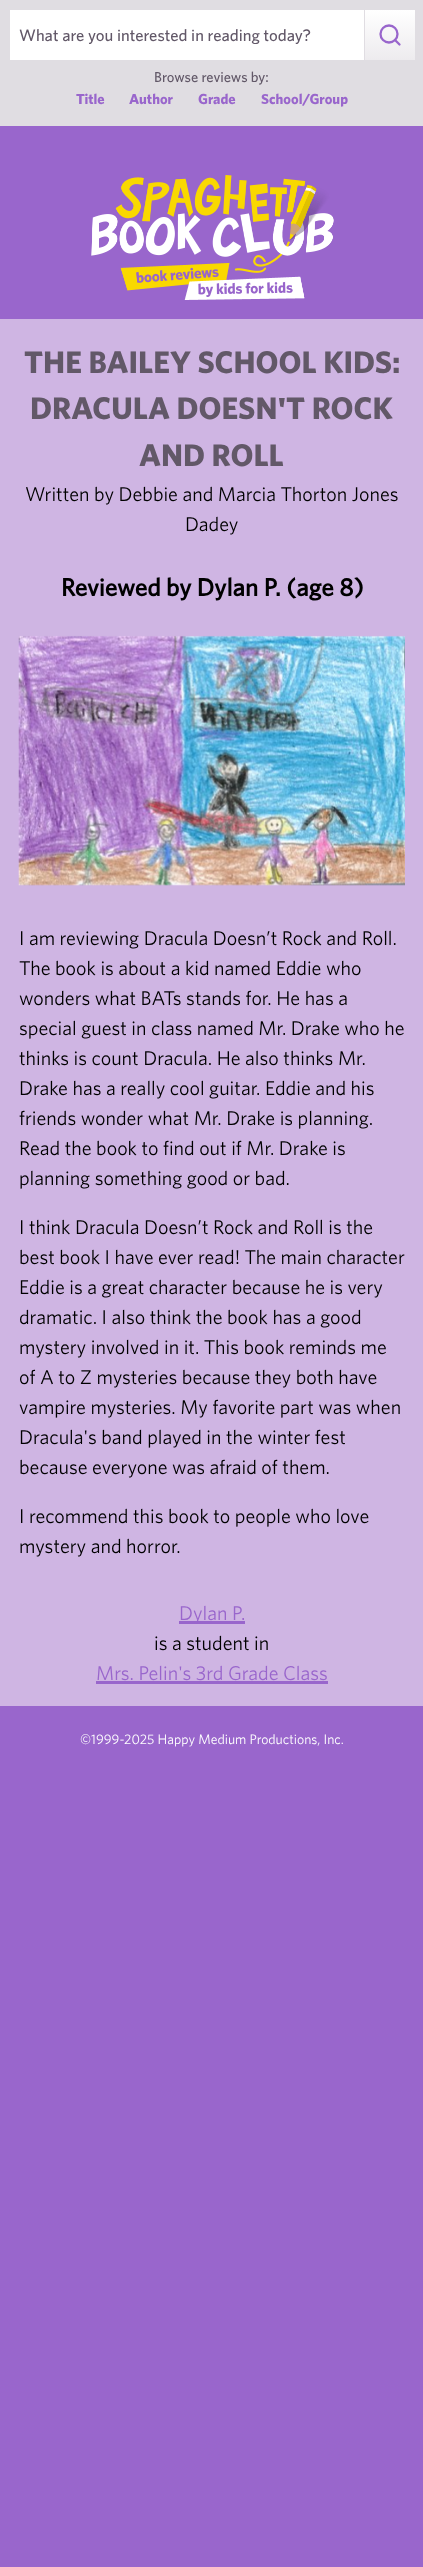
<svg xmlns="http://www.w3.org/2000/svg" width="423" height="2567">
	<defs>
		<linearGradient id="g1" gradientUnits="userSpaceOnUse" x1="366" y1="60" x2="366" y2="-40"><stop offset="0" stop-color="#EDEBEE" /><stop offset="0.5" stop-color="#FFFFFF" /></linearGradient>
	</defs>
	<rect width="100%" height="100%" fill="#9966CC" />
	<rect x="0" y="0" width="423" height="126" fill="#E0DDE2" />
	<rect x="10" y="10" width="354" height="50" fill="#FFFFFF" />
	<text x="19" y="41" font-family="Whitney" font-size="16.6" font-weight="500" fill="#625868">What are you interested in reading today?</text>
	<rect x="365" y="10" width="50" height="50" fill="url(#g1)" />
	<circle cx="389" cy="34" r="8.5" fill="none" stroke="#9966CC" stroke-width="2.3" />
	<path d="M399.5 44.5L395 40" fill="none" stroke="#9966CC" stroke-width="2.3" stroke-linecap="round" stroke-linejoin="round" />
	<text x="154" y="82" font-family="Whitney" font-size="14.5" font-weight="500" fill="#625868">Browse reviews by:</text>
	<g font-family="Whitney" font-size="14.5" font-weight="700" fill="#9966CC">
		<text x="76" y="104">Title</text>
		<text x="129" y="104">Author</text>
		<text x="198" y="104">Grade</text>
		<text x="261" y="104">School/Group</text>
	</g>
	<image x="91" y="175" width="243" height="125" href="assets/img1.png" />
	<rect x="0" y="319" width="423" height="1387" fill="#CFB5E3" />
	<g font-family="Whitney" font-size="31.25" font-weight="700" fill="#625868">
		<text x="24" y="373">THE BAILEY SCHOOL KIDS:</text>
		<text x="30" y="419">DRACULA DOESN'T ROCK</text>
		<text x="139" y="466">AND ROLL</text>
	</g>
	<g font-family="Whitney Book" font-size="20" fill="#000000">
		<text x="25" y="501">Written by Debbie and Marcia Thorton Jones</text>
		<text x="185" y="531">Dadey</text>
	</g>
	<text x="61" y="596" font-family="'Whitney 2'" font-size="25" font-weight="700" fill="#000000">Reviewed by Dylan P. (age 8)</text>
	<image x="18" y="635" width="387" height="251" href="assets/img2.png" />
	<g font-family="Whitney Book" font-size="20" fill="#000000">
		<text x="19" y="945">I am reviewing Dracula Doesn’t Rock and Roll.</text>
		<text x="19" y="975">The book is about a kid named Eddie who</text>
		<text x="19" y="1005">wonders what BATs stands for. He has a</text>
		<text x="19" y="1035">special guest in class named Mr. Drake who he</text>
		<text x="19" y="1065">thinks is count Dracula. He also thinks Mr.</text>
		<text x="19" y="1095">Drake has a really cool guitar. Eddie and his</text>
		<text x="19" y="1125">friends wonder what Mr. Drake is planning.</text>
		<text x="19" y="1155">Read the book to find out if Mr. Drake is</text>
		<text x="19" y="1185">planning something good or bad.</text>
		<text x="19" y="1234">I think Dracula Doesn’t Rock and Roll is the</text>
		<text x="19" y="1264">best book I have ever read! The main character</text>
		<text x="19" y="1294">Eddie is a great character because he is very</text>
		<text x="19" y="1324">dramatic. I also think the book has a good</text>
		<text x="19" y="1354">mystery involved in it. This book reminds me</text>
		<text x="19" y="1384">of A to Z mysteries because they both have</text>
		<text x="19" y="1414">vampire mysteries. My favorite part was when</text>
		<text x="19" y="1444">Dracula's band played in the winter fest</text>
		<text x="19" y="1474">because everyone was afraid of them.</text>
		<text x="19" y="1523">I recommend this book to people who love</text>
		<text x="19" y="1553">mystery and horror.</text>
	</g>
	<rect x="179" y="1621" width="66" height="3" fill="#9966CC" />
	<text x="179" y="1620" font-family="Whitney Book" font-size="20" fill="#9966CC">Dylan P.</text>
	<text x="154" y="1650" font-family="Whitney Book" font-size="20" fill="#000000">is a student in</text>
	<text x="96" y="1680" font-family="Whitney Book" font-size="20" fill="#9966CC">Mrs. Pelin's 3rd Grade Class</text>
	<rect x="96" y="1681" width="232" height="3" fill="#9966CC" />
	<text x="80" y="1744" font-family="Whitney Book" font-size="13.75" fill="#FFFFFF">©1999-2025 Happy Medium Productions, Inc.</text>
</svg>
